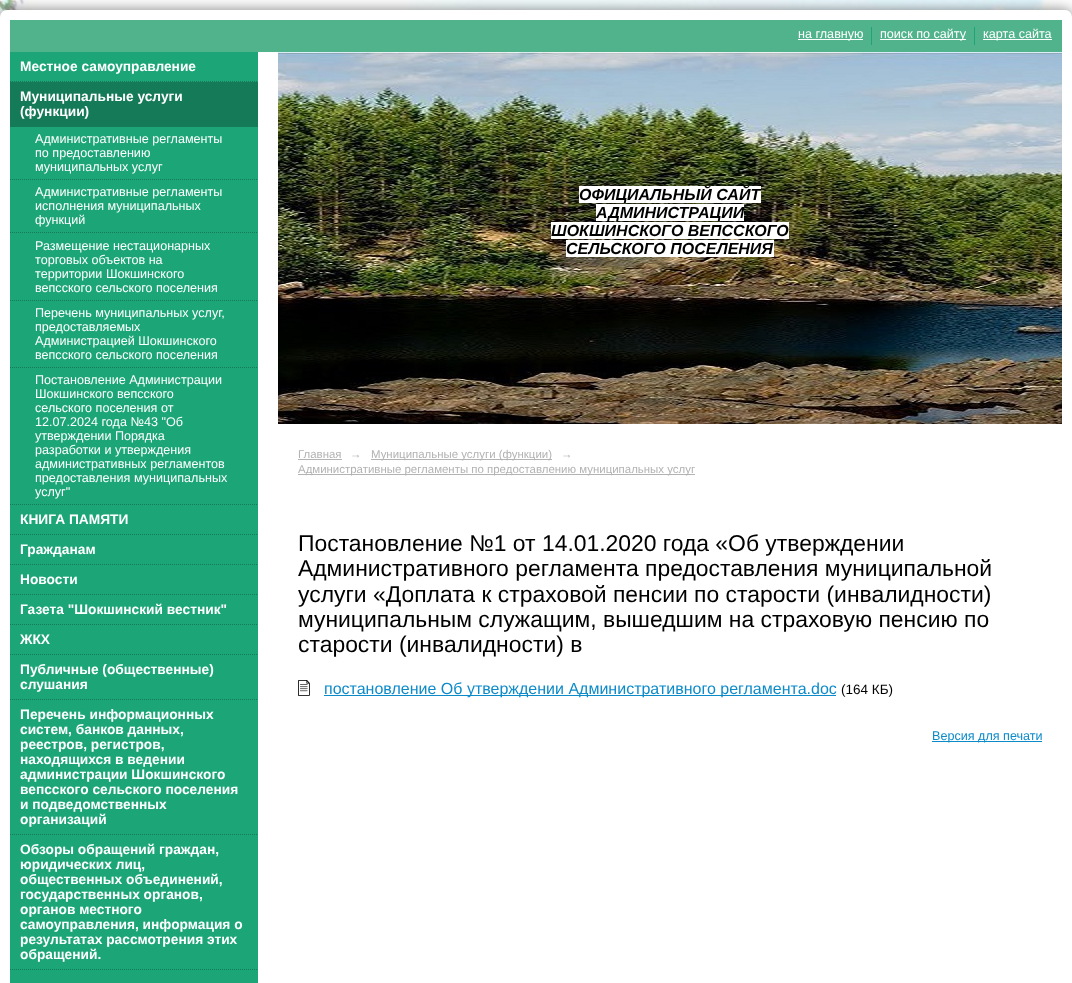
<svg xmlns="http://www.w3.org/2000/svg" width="1072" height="983">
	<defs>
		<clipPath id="clip1"><rect x="520" y="186" width="300" height="72" /></clipPath>
	</defs>
	<rect width="100%" height="100%" fill="#FFFFFF" />
	<image x="0" y="0" width="1072" height="17" href="assets/img1.png" />
	<rect x="0" y="10" width="1072" height="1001" rx="7" fill="#000000" fill-opacity="0.5" filter="blur(7px)" />
	<rect x="0" y="10" width="1072" height="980" rx="7" fill="#FFFFFF" />
	<rect x="10" y="20" width="1052" height="32" fill="#51B38C" />
	<rect x="798" y="39" width="65" height="1" fill="#FFFFFF" />
	<text x="798" y="38" font-family="Liberation Sans" font-size="12.6" fill="#FFFFFF">на главную</text>
	<rect x="871" y="27" width="1" height="18" fill="#1CA678" />
	<rect x="880" y="39" width="86" height="1" fill="#FFFFFF" />
	<text x="880" y="38" font-family="Liberation Sans" font-size="12.6" fill="#FFFFFF">поиск по сайту</text>
	<rect x="974" y="27" width="1" height="18" fill="#1CA678" />
	<rect x="983" y="39" width="69" height="1" fill="#FFFFFF" />
	<text x="983" y="38" font-family="Liberation Sans" font-size="12.6" fill="#FFFFFF">карта сайта</text>
	<rect x="10" y="52" width="248" height="931" fill="#1CA678" />
	<path d="M10 81.5H258" fill="none" stroke="#157A58" stroke-dasharray="1 1" />
	<text x="20" y="71" font-family="Liberation Sans" font-size="13.75" font-weight="700" fill="#FFFFFF">Местное самоуправление</text>
	<rect x="10" y="82" width="248" height="45" fill="#157A58" />
	<g font-family="Liberation Sans" font-size="13.75" font-weight="700" fill="#FFFFFF">
		<text x="20" y="101">Муниципальные услуги</text>
		<text x="20" y="116">(функции)</text>
	</g>
	<path d="M10 179.5H258" fill="none" stroke="#157A58" stroke-dasharray="1 1" />
	<g font-family="Liberation Sans" font-size="12.6" fill="#FFFFFF">
		<text x="35" y="143">Административные регламенты</text>
		<text x="35" y="157">по предоставлению</text>
		<text x="35" y="171">муниципальных услуг</text>
	</g>
	<path d="M10 232.5H258" fill="none" stroke="#157A58" stroke-dasharray="1 1" />
	<g font-family="Liberation Sans" font-size="12.6" fill="#FFFFFF">
		<text x="35" y="196">Административные регламенты</text>
		<text x="35" y="210">исполнения муниципальных</text>
		<text x="35" y="224">функций</text>
	</g>
	<path d="M10 300.5H258" fill="none" stroke="#157A58" stroke-dasharray="1 1" />
	<g font-family="Liberation Sans" font-size="12.6" fill="#FFFFFF">
		<text x="35" y="250">Размещение нестационарных</text>
		<text x="35" y="264">торговых объектов на</text>
		<text x="35" y="278">территории Шокшинского</text>
		<text x="35" y="292">вепсского сельского поселения</text>
	</g>
	<path d="M10 367.5H258" fill="none" stroke="#157A58" stroke-dasharray="1 1" />
	<g font-family="Liberation Sans" font-size="12.6" fill="#FFFFFF">
		<text x="35" y="317">Перечень муниципальных услуг,</text>
		<text x="35" y="331">предоставляемых</text>
		<text x="35" y="345">Администрацией Шокшинского</text>
		<text x="35" y="359">вепсского сельского поселения</text>
	</g>
	<path d="M10 504.5H258" fill="none" stroke="#157A58" stroke-dasharray="1 1" />
	<g font-family="Liberation Sans" font-size="12.6" fill="#FFFFFF">
		<text x="35" y="384">Постановление Администрации</text>
		<text x="35" y="398">Шокшинского вепсского</text>
		<text x="35" y="412">сельского поселения от</text>
		<text x="35" y="426">12.07.2024 года №43 "Об</text>
		<text x="35" y="440">утверждении Порядка</text>
		<text x="35" y="454">разработки и утверждения</text>
		<text x="35" y="468">административных регламентов</text>
		<text x="35" y="482">предоставления муниципальных</text>
		<text x="35" y="496">услуг"</text>
	</g>
	<path d="M10 534.5H258" fill="none" stroke="#157A58" stroke-dasharray="1 1" />
	<text x="20" y="524" font-family="Liberation Sans" font-size="13.75" font-weight="700" fill="#FFFFFF">КНИГА ПАМЯТИ</text>
	<path d="M10 564.5H258" fill="none" stroke="#157A58" stroke-dasharray="1 1" />
	<text x="20" y="554" font-family="Liberation Sans" font-size="13.75" font-weight="700" fill="#FFFFFF">Гражданам</text>
	<path d="M10 594.5H258" fill="none" stroke="#157A58" stroke-dasharray="1 1" />
	<text x="20" y="584" font-family="Liberation Sans" font-size="13.75" font-weight="700" fill="#FFFFFF">Новости</text>
	<path d="M10 624.5H258" fill="none" stroke="#157A58" stroke-dasharray="1 1" />
	<text x="20" y="614" font-family="Liberation Sans" font-size="13.75" font-weight="700" fill="#FFFFFF">Газета "Шокшинский вестник"</text>
	<path d="M10 654.5H258" fill="none" stroke="#157A58" stroke-dasharray="1 1" />
	<text x="20" y="644" font-family="Liberation Sans" font-size="13.75" font-weight="700" fill="#FFFFFF">ЖКХ</text>
	<path d="M10 699.5H258" fill="none" stroke="#157A58" stroke-dasharray="1 1" />
	<g font-family="Liberation Sans" font-size="13.75" font-weight="700" fill="#FFFFFF">
		<text x="20" y="674">Публичные (общественные)</text>
		<text x="20" y="689">слушания</text>
	</g>
	<path d="M10 834.5H258" fill="none" stroke="#157A58" stroke-dasharray="1 1" />
	<g font-family="Liberation Sans" font-size="13.75" font-weight="700" fill="#FFFFFF">
		<text x="20" y="719">Перечень информационных</text>
		<text x="20" y="734">систем, банков данных,</text>
		<text x="20" y="749">реестров, регистров,</text>
		<text x="20" y="764">находящихся в ведении</text>
		<text x="20" y="779">администрации Шокшинского</text>
		<text x="20" y="794">вепсского сельского поселения</text>
		<text x="20" y="809">и подведомственных</text>
		<text x="20" y="824">организаций</text>
	</g>
	<path d="M10 969.5H258" fill="none" stroke="#157A58" stroke-dasharray="1 1" />
	<g font-family="Liberation Sans" font-size="13.75" font-weight="700" fill="#FFFFFF">
		<text x="20" y="854">Обзоры обращений граждан,</text>
		<text x="20" y="869">юридических лиц,</text>
		<text x="20" y="884">общественных объединений,</text>
		<text x="20" y="899">государственных органов,</text>
		<text x="20" y="914">органов местного</text>
		<text x="20" y="929">самоуправления, информация о</text>
		<text x="20" y="944">результатах рассмотрения этих</text>
		<text x="20" y="959">обращений.</text>
	</g>
	<image x="278" y="52" width="784" height="372" href="assets/img2.png" />
	<rect x="579" y="186" width="182" height="17" fill="#FFFFFF" />
	<g clip-path="url(#clip1)">
		<text x="579" y="200" font-family="Liberation Sans" font-size="16" font-weight="700" font-style="italic" fill="#000000">ОФИЦИАЛЬНЫЙ САЙТ</text>
	</g>
	<rect x="596" y="204" width="148" height="17" fill="#FFFFFF" />
	<text x="596" y="218" font-family="Liberation Sans" font-size="16" font-weight="700" font-style="italic" fill="#000000">АДМИНИСТРАЦИИ</text>
	<rect x="551" y="222" width="238" height="17" fill="#FFFFFF" />
	<text x="551" y="236" font-family="Liberation Sans" font-size="16" font-weight="700" font-style="italic" fill="#000000">ШОКШИНСКОГО ВЕПССКОГО</text>
	<rect x="566" y="240" width="208" height="17" fill="#FFFFFF" />
	<text x="566" y="254" font-family="Liberation Sans" font-size="16" font-weight="700" font-style="italic" fill="#000000">СЕЛЬСКОГО ПОСЕЛЕНИЯ</text>
	<text x="298" y="458" font-family="Liberation Sans" font-size="11.45" fill="#B3B3B3">Главная</text>
	<rect x="298" y="459" width="44" height="1" fill="#B3B3B3" />
	<text x="350" y="458" font-family="Liberation Sans" font-size="11.45" font-style="italic" fill="#B3B3B3">→</text>
	<rect x="371" y="459" width="181" height="1" fill="#B3B3B3" />
	<text x="371" y="458" font-family="Liberation Sans" font-size="11.45" fill="#B3B3B3">Муниципальные услуги (функции)</text>
	<text x="561" y="458" font-family="Liberation Sans" font-size="11.45" font-style="italic" fill="#B3B3B3">→</text>
	<rect x="298" y="474" width="397" height="1" fill="#B3B3B3" />
	<text x="298" y="473" font-family="Liberation Sans" font-size="11.45" fill="#B3B3B3">Административные регламенты по предоставлению муниципальных услуг</text>
	<g font-family="Liberation Sans" font-size="22.9" fill="#000000">
		<text x="298" y="551">Постановление №1 от 14.01.2020 года «Об утверждении</text>
		<text x="298" y="576">Административного регламента предоставления муниципальной</text>
		<text x="298" y="602">услуги «Доплата к страховой пенсии по старости (инвалидности)</text>
		<text x="298" y="627">муниципальным служащим, вышедшим на страховую пенсию по</text>
		<text x="298" y="652">старости (инвалидности) в</text>
	</g>
	<image x="298" y="680" width="12" height="16" href="assets/img3.png" />
	<rect x="324" y="695" width="512" height="1" fill="#0D8BC9" />
	<text x="324" y="694" font-family="Liberation Sans" font-size="16" fill="#0D8BC9">постановление Об утверждении Административного регламента.doc</text>
	<text x="841" y="694" font-family="Liberation Sans" font-size="13.5" fill="#000000">(164 КБ)</text>
	<rect x="932" y="741" width="110" height="1" fill="#0D8BC9" />
	<text x="932" y="740" font-family="Liberation Sans" font-size="12.6" fill="#0D8BC9">Версия для печати</text>
</svg>
